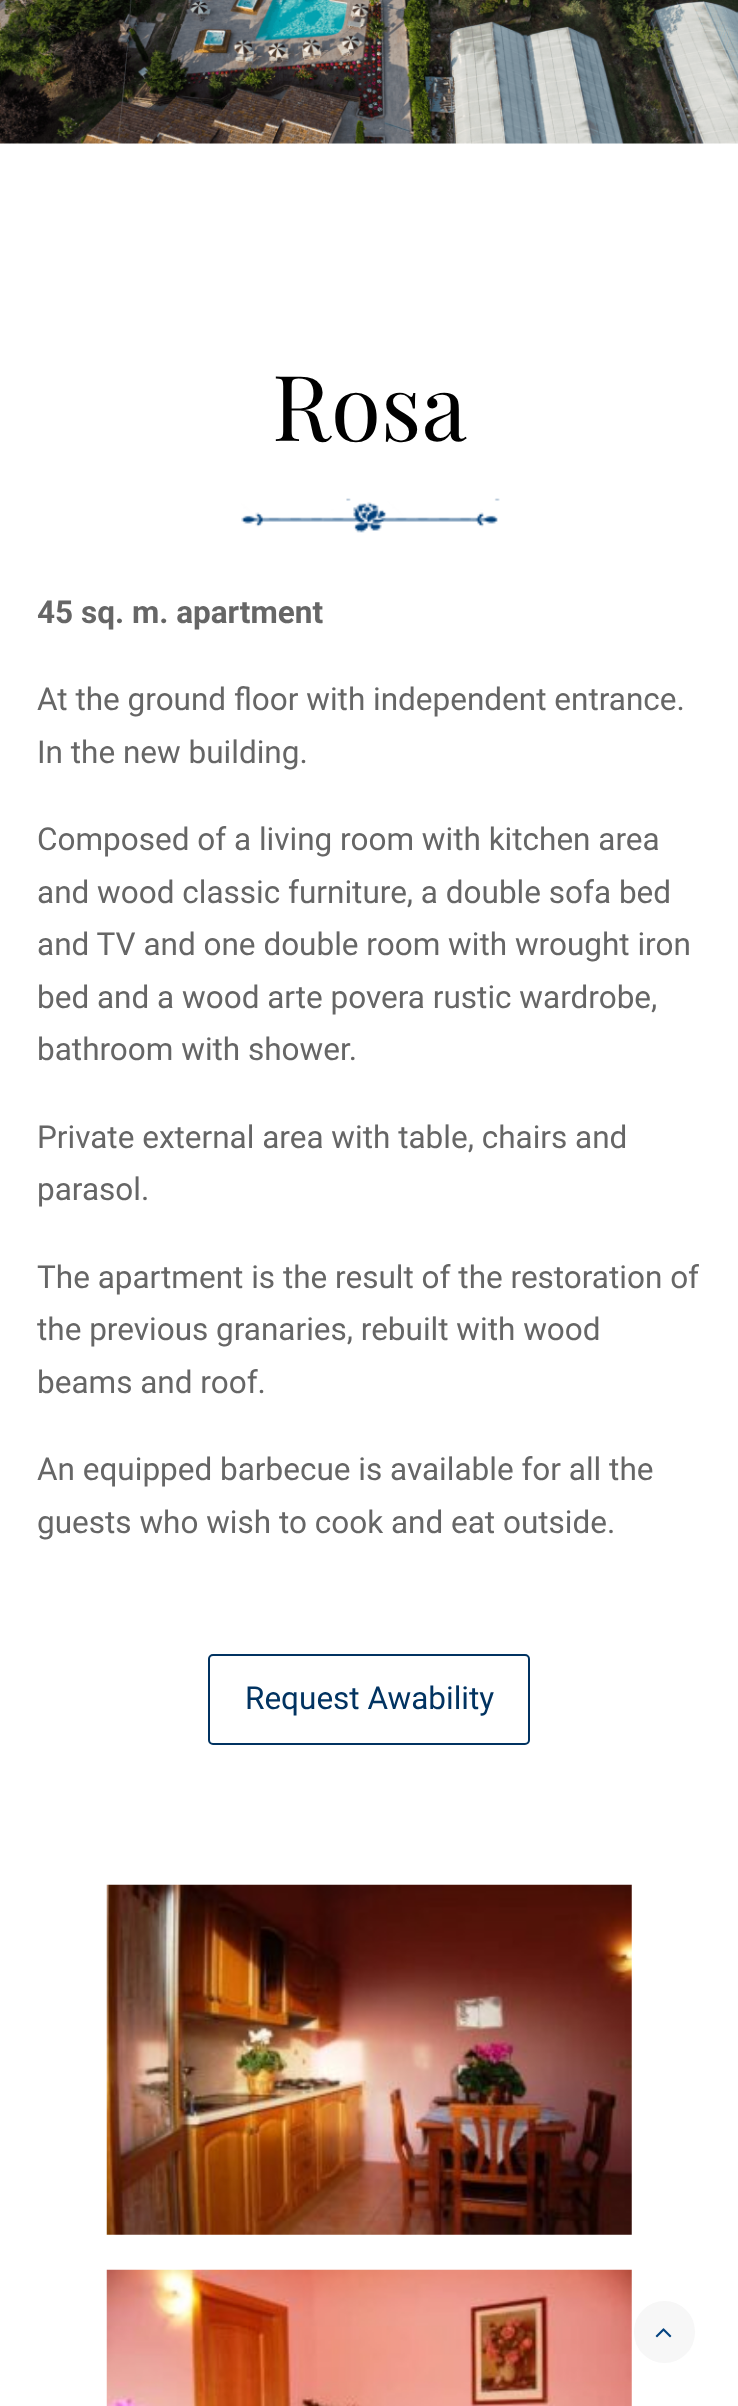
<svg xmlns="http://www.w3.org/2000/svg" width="738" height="2406">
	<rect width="100%" height="100%" fill="#FFFFFF" />
	<image x="0" y="0" width="738" height="144" href="assets/img1.png" />
	<text x="272" y="441" font-family="Playfair Display" font-size="91" fill="#000000">Rosa</text>
	<image x="241" y="498" width="259" height="35" href="assets/img2.png" />
	<text x="37" y="623" font-family="Roboto" font-size="31.5" font-weight="700" fill="#666666">45 sq. m. apartment</text>
	<g font-family="Roboto" font-size="31.5" fill="#666666">
		<text x="37" y="710">At the ground floor with independent entrance.</text>
		<text x="37" y="763">In the new building.</text>
		<text x="37" y="850">Composed of a living room with kitchen area</text>
		<text x="37" y="903">and wood classic furniture, a double sofa bed</text>
		<text x="37" y="955">and TV and one double room with wrought iron</text>
		<text x="37" y="1008">bed and a wood arte povera rustic wardrobe,</text>
		<text x="37" y="1060">bathroom with shower.</text>
		<text x="37" y="1148">Private external area with table, chairs and</text>
		<text x="37" y="1200">parasol.</text>
		<text x="37" y="1288">The apartment is the result of the restoration of</text>
		<text x="37" y="1340">the previous granaries, rebuilt with wood</text>
		<text x="37" y="1393">beams and roof.</text>
		<text x="37" y="1480">An equipped barbecue is available for all the</text>
		<text x="37" y="1533">guests who wish to cook and eat outside.</text>
	</g>
	<rect x="209" y="1655" width="320" height="89" rx="4" fill="none" stroke="#013361" stroke-width="2" />
	<text x="245" y="1709" font-family="Roboto" font-size="31.5" fill="#013361">Request Awability</text>
	<image x="106" y="1884" width="526" height="351" href="assets/img3.png" />
	<image x="106" y="2269" width="526" height="137" href="assets/img4.png" />
	<rect x="634" y="2301" width="61" height="62" rx="30.5" fill="#F7F7F7" />
	<image x="655" y="2328" width="17" height="10" href="assets/img5.png" />
</svg>
